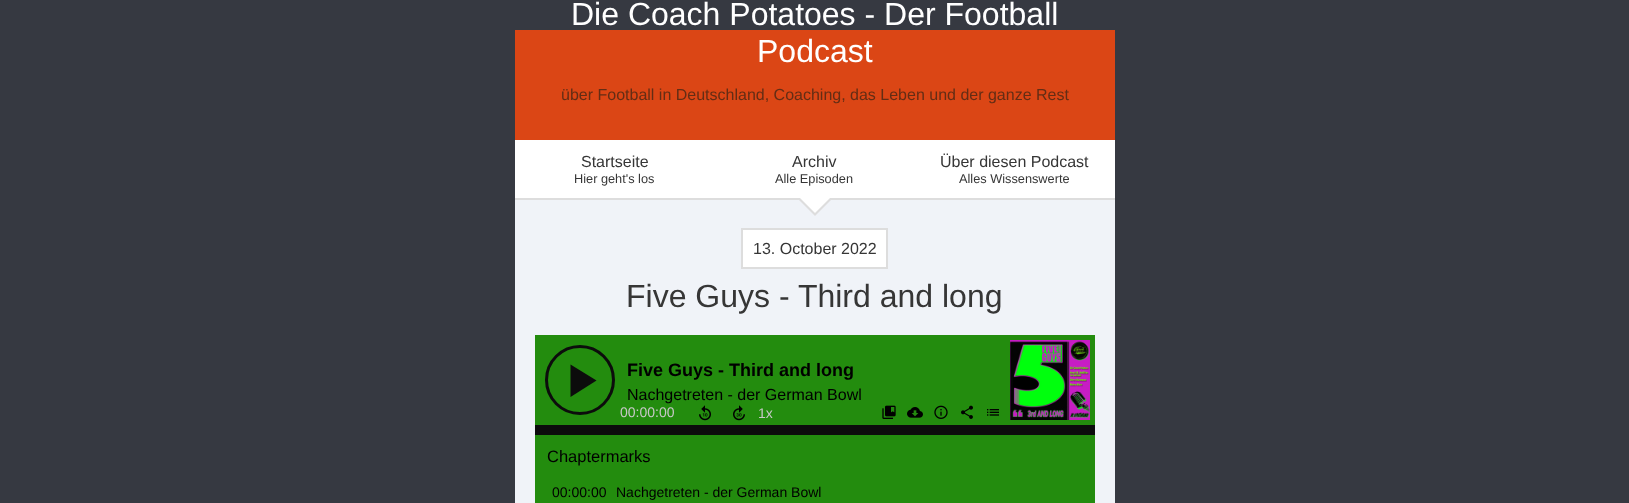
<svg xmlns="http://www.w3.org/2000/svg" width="1629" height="503">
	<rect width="100%" height="100%" fill="#363941" />
	<rect x="515" y="140" width="600" height="58" fill="#FFFFFF" />
	<text x="571" y="25" font-family="Liberation Sans" font-size="32" fill="#FFFFFF">Die Coach Potatoes - Der Football</text>
	<rect x="515" y="30" width="600" height="110" fill="#DB4615" />
	<text x="757" y="62" font-family="Liberation Sans" font-size="32" fill="#FFFFFF">Podcast</text>
	<text x="561" y="100" font-family="Liberation Sans" font-size="16" fill="#632D15">über Football in Deutschland, Coaching, das Leben und der ganze Rest</text>
	<rect x="515" y="198" width="600" height="2" fill="#DDDDDD" />
	<text x="581" y="167" font-family="Liberation Sans" font-size="16" fill="#363636">Startseite</text>
	<text x="574" y="183" font-family="Liberation Sans" font-size="12.75" fill="#363636">Hier geht's los</text>
	<text x="792" y="167" font-family="Liberation Sans" font-size="16" fill="#363636">Archiv</text>
	<text x="775" y="183" font-family="Liberation Sans" font-size="12.75" fill="#363636">Alle Episoden</text>
	<text x="940" y="167" font-family="Liberation Sans" font-size="16" fill="#363636">Über diesen Podcast</text>
	<text x="959" y="183" font-family="Liberation Sans" font-size="12.75" fill="#363636">Alles Wissenswerte</text>
	<rect x="515" y="200" width="600" height="303" fill="#F0F3F8" />
	<path d="M797 198H833L815 216Z" fill="#DDDDDD" />
	<path d="M800 198H830L815 213Z" fill="#FFFFFF" />
	<rect x="742" y="229" width="145" height="39" fill="#FFFFFF" stroke="#DDDDDD" stroke-width="2" />
	<text x="753" y="254" font-family="Liberation Sans" font-size="16" fill="#363636">13. October 2022</text>
	<text x="626" y="307" font-family="Liberation Sans" font-size="32" fill="#363636">Five Guys - Third and long</text>
	<rect x="535" y="335" width="560" height="168" fill="#238C0E" />
	<circle cx="580" cy="380" r="33.5" fill="none" stroke="#0C0C0C" stroke-width="3" />
	<path d="M570.5 364.5L596.5 380.5L570.5 397Z" fill="#0C0C0C" />
	<text x="627" y="376" font-family="Liberation Sans" font-size="18" font-weight="700" fill="#000000">Five Guys - Third and long</text>
	<text x="627" y="400" font-family="Liberation Sans" font-size="16" fill="#000000">Nachgetreten - der German Bowl</text>
	<image x="1010" y="340" width="80" height="80" href="assets/img1.png" />
	<text x="620" y="417" font-family="Liberation Sans" font-size="14" fill="#C8C8C8">00:00:00</text>
	<rect x="535" y="425" width="560" height="10" fill="#0C0C0C" />
	<image x="699" y="405" width="12" height="16" href="assets/img2.png" />
	<image x="733" y="405" width="12" height="16" href="assets/img3.png" />
	<text x="758" y="418" font-family="Liberation Sans" font-size="14" fill="#C8C8C8">1x</text>
	<image x="882" y="405" width="14" height="14" href="assets/img4.png" />
	<image x="907" y="407" width="16" height="11" href="assets/img5.png" />
	<image x="934" y="405" width="14" height="14" href="assets/img6.png" />
	<image x="961" y="405" width="12" height="14" href="assets/img7.png" />
	<image x="987" y="409" width="12" height="7" href="assets/img8.png" />
	<text x="547" y="462" font-family="Liberation Sans" font-size="16.5" fill="#000000">Chaptermarks</text>
	<g font-family="Liberation Sans" font-size="14" fill="#000000">
		<text x="552" y="497">00:00:00</text>
		<text x="616" y="497">Nachgetreten - der German Bowl</text>
	</g>
</svg>
